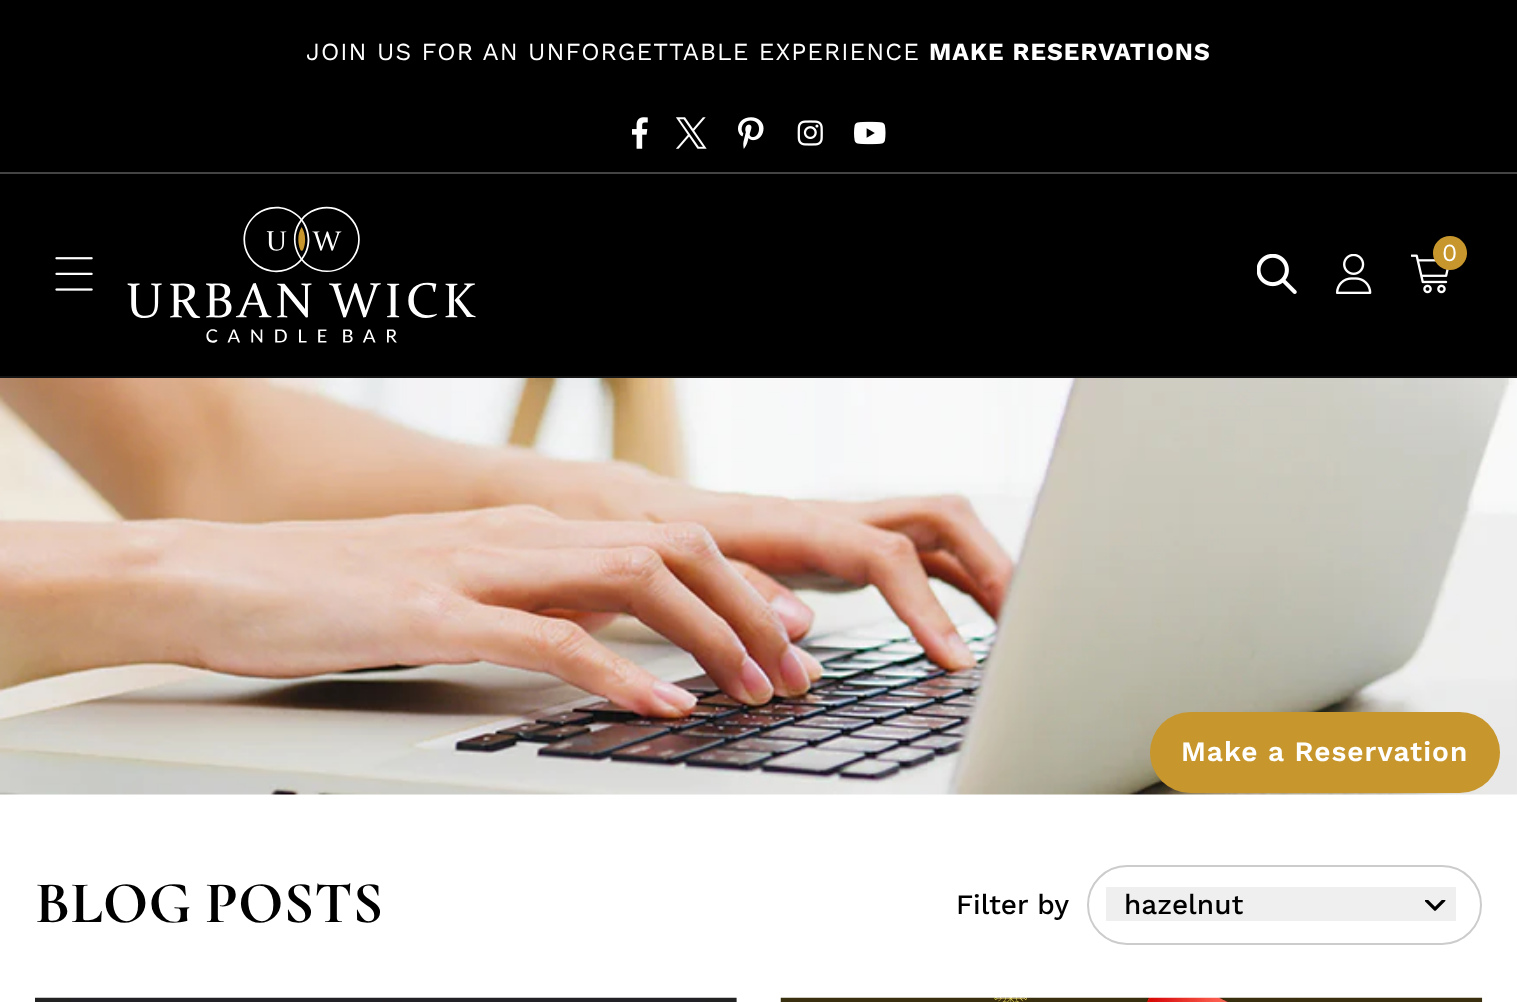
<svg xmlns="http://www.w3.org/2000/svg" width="1517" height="1002">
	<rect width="100%" height="100%" fill="#FFFFFF" />
	<rect x="0" y="0" width="1517" height="172" fill="#000000" />
	<rect x="0" y="172" width="1517" height="2" fill="#434343" />
	<text x="306" y="60" font-family="Work Sans" font-size="24.5" letter-spacing="1.05" fill="#FFFFFF">JOIN US FOR AN UNFORGETTABLE EXPERIENCE</text>
	<text x="929" y="60" font-family="Work Sans" font-size="24.5" font-weight="700" letter-spacing="1.05" fill="#FFFFFF">MAKE RESERVATIONS</text>
	<image x="632" y="117" width="16" height="32" href="assets/img1.png" />
	<image x="676" y="117" width="31" height="32" href="assets/img2.png" />
	<image x="738" y="117" width="26" height="32" href="assets/img3.png" />
	<image x="797" y="120" width="26" height="26" href="assets/img4.png" />
	<image x="854" y="121" width="32" height="24" href="assets/img5.png" />
	<rect x="0" y="174" width="1517" height="202" fill="#000000" />
	<rect x="0" y="376" width="1517" height="2" fill="#141414" />
	<image x="127" y="206" width="349" height="137" href="assets/img6.png" />
	<image x="1257" y="254" width="40" height="40" href="assets/img7.png" />
	<image x="1335" y="254" width="37" height="40" href="assets/img8.png" />
	<image x="1411" y="254" width="38" height="40" href="assets/img9.png" />
	<circle cx="1450" cy="253" r="17" fill="#C7962C" />
	<text x="1442" y="261" font-family="Work Sans" font-size="24.5" fill="#FFFFFF">0</text>
	<image x="55" y="257" width="38" height="34" href="assets/img10.png" />
	<image x="0" y="378" width="1517" height="417" href="assets/img11.png" />
	<rect x="1150" y="712" width="350" height="81" rx="40.5" fill="#C7962C" />
	<text x="1181" y="761" font-family="Work Sans" font-size="28" font-weight="600" letter-spacing="1.05" fill="#FFFFFF">Make a Reservation</text>
	<text x="35" y="922" font-family="Cormorant" font-size="59.5" font-weight="700" fill="#000000">BLOG POSTS</text>
	<text x="956" y="914" font-family="Work Sans" font-size="28" font-weight="500" fill="#000000">Filter by</text>
	<rect x="1088" y="866" width="393" height="78" rx="39" fill="none" stroke="#CCCCCC" stroke-width="2" />
	<rect x="1106" y="887" width="350" height="34" fill="#EFEFEF" />
	<text x="1124" y="914" font-family="Work Sans" font-size="28" font-weight="500" fill="#000000">hazelnut</text>
	<image x="1425" y="900" width="21" height="11" href="assets/img12.png" />
	<rect x="736" y="998" width="1" height="4" fill="#E7E7E7" />
	<image x="35" y="997" width="702" height="5" href="assets/img13.png" />
	<image x="780" y="997" width="703" height="5" href="assets/img14.png" />
</svg>
